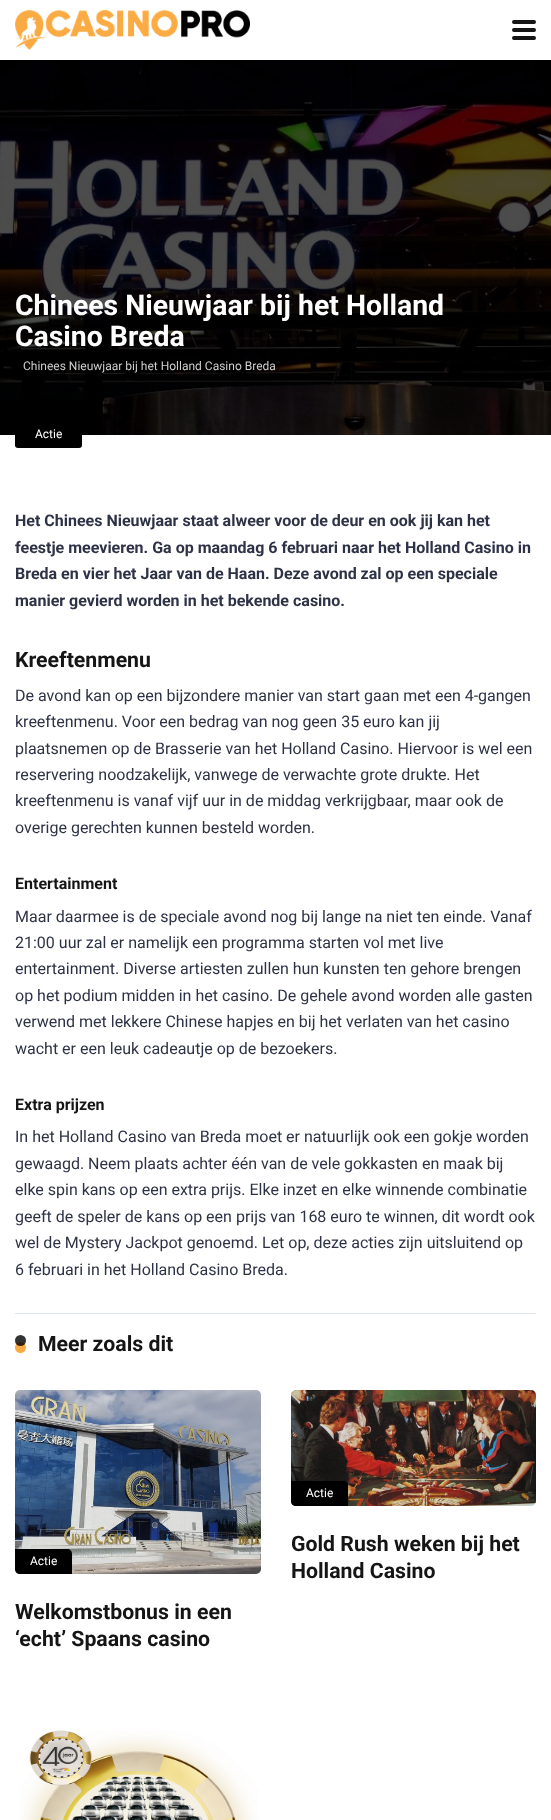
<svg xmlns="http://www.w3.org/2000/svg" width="551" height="1820">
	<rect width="100%" height="100%" fill="#FFFFFF" />
	<image x="15" y="10" width="235" height="40" href="assets/img1.png" />
	<rect x="512" y="20" width="24" height="4" rx="2" fill="#151515" />
	<rect x="512" y="28" width="24" height="4" rx="2" fill="#151515" />
	<rect x="512" y="36" width="24" height="4" rx="2" fill="#151515" />
	<image x="0" y="60" width="551" height="375" href="assets/img2.png" />
	<g font-family="Roboto" font-size="28.4" font-weight="700" fill="#FFFFFF">
		<text x="15" y="315">Chinees Nieuwjaar bij het Holland</text>
		<text x="15" y="346">Casino Breda</text>
	</g>
	<text x="23" y="370" font-family="Roboto" font-size="12" fill="#CECECE">Chinees Nieuwjaar bij het Holland Casino Breda</text>
	<rect x="15" y="421" width="67" height="27" rx="3" fill="#000000" />
	<text x="35" y="438" font-family="Roboto" font-size="12" fill="#FFFFFF">Actie</text>
	<rect x="15" y="1313" width="521" height="1" fill="#DFE6E9" />
	<g font-family="Roboto" font-size="16" font-weight="700" fill="#2E3246">
		<text x="15" y="526">Het Chinees Nieuwjaar staat alweer voor de deur en ook jij kan het</text>
		<text x="15" y="553">feestje meevieren. Ga op maandag 6 februari naar het Holland Casino in</text>
		<text x="15" y="579">Breda en vier het Jaar van de Haan. Deze avond zal op een speciale</text>
		<text x="15" y="606">manier gevierd worden in het bekende casino.</text>
	</g>
	<text x="15" y="667" font-family="Roboto" font-size="21.25" font-weight="700" fill="#151515">Kreeftenmenu</text>
	<g font-family="Roboto" font-size="16" fill="#2E3246">
		<text x="15" y="701">De avond kan op een bijzondere manier van start gaan met een 4-gangen</text>
		<text x="15" y="727">kreeftenmenu. Voor een bedrag van nog geen 35 euro kan jij</text>
		<text x="15" y="754">plaatsnemen op de Brasserie van het Holland Casino. Hiervoor is wel een</text>
		<text x="15" y="780">reservering noodzakelijk, vanwege de verwachte grote drukte. Het</text>
		<text x="15" y="806">kreeftenmenu is vanaf vijf uur in de middag verkrijgbaar, maar ook de</text>
		<text x="15" y="833">overige gerechten kunnen besteld worden.</text>
	</g>
	<text x="15" y="889" font-family="Roboto" font-size="16" font-weight="700" fill="#151515">Entertainment</text>
	<g font-family="Roboto" font-size="16" fill="#2E3246">
		<text x="15" y="922">Maar daarmee is de speciale avond nog bij lange na niet ten einde. Vanaf</text>
		<text x="15" y="948">21:00 uur zal er namelijk een programma starten vol met live</text>
		<text x="15" y="974">entertainment. Diverse artiesten zullen hun kunsten ten gehore brengen</text>
		<text x="15" y="1001">op het podium midden in het casino. De gehele avond worden alle gasten</text>
		<text x="15" y="1027">verwend met lekkere Chinese hapjes en bij het verlaten van het casino</text>
		<text x="15" y="1054">wacht er een leuk cadeautje op de bezoekers.</text>
	</g>
	<text x="15" y="1110" font-family="Roboto" font-size="16" font-weight="700" fill="#151515">Extra prijzen</text>
	<g font-family="Roboto" font-size="16" fill="#2E3246">
		<text x="15" y="1142">In het Holland Casino van Breda moet er natuurlijk ook een gokje worden</text>
		<text x="15" y="1169">gewaagd. Neem plaats achter één van de vele gokkasten en maak bij</text>
		<text x="15" y="1195">elke spin kans op een extra prijs. Elke inzet en elke winnende combinatie</text>
		<text x="15" y="1222">geeft de speler de kans op een prijs van 168 euro te winnen, dit wordt ook</text>
		<text x="15" y="1248">wel de Mystery Jackpot genoemd. Let op, deze acties zijn uitsluitend op</text>
		<text x="15" y="1275">6 februari in het Holland Casino Breda.</text>
	</g>
	<circle cx="20.5" cy="1347.5" r="5.5" fill="#FBAB44" />
	<circle cx="20.5" cy="1340.5" r="5.5" fill="#000000" fill-opacity="0.8" />
	<text x="38" y="1351" font-family="Roboto" font-size="21.25" font-weight="700" fill="#151515">Meer zoals dit</text>
	<image x="291" y="1390" width="245" height="116" href="assets/img3.png" />
	<path d="M291 1481H343C346 1481 348 1483 348 1486V1506H296C293 1506 291 1504 291 1501Z" fill="#000000" />
	<text x="306" y="1497" font-family="Roboto" font-size="12" fill="#FFFFFF">Actie</text>
	<g font-family="Roboto" font-size="21.25" font-weight="700" fill="#151515">
		<text x="291" y="1551">Gold Rush weken bij het</text>
		<text x="291" y="1578">Holland Casino</text>
	</g>
	<image x="15" y="1390" width="246" height="184" href="assets/img4.png" />
	<path d="M15 1549H67C70 1549 72 1551 72 1554V1574H20C17 1574 15 1572 15 1569Z" fill="#000000" />
	<text x="30" y="1565" font-family="Roboto" font-size="12" fill="#FFFFFF">Actie</text>
	<g font-family="Roboto" font-size="21.25" font-weight="700" fill="#151515">
		<text x="15" y="1619">Welkomstbonus in een</text>
		<text x="15" y="1646">‘echt’ Spaans casino</text>
	</g>
	<image x="20" y="1730" width="238" height="90" href="assets/img5.png" />
</svg>
